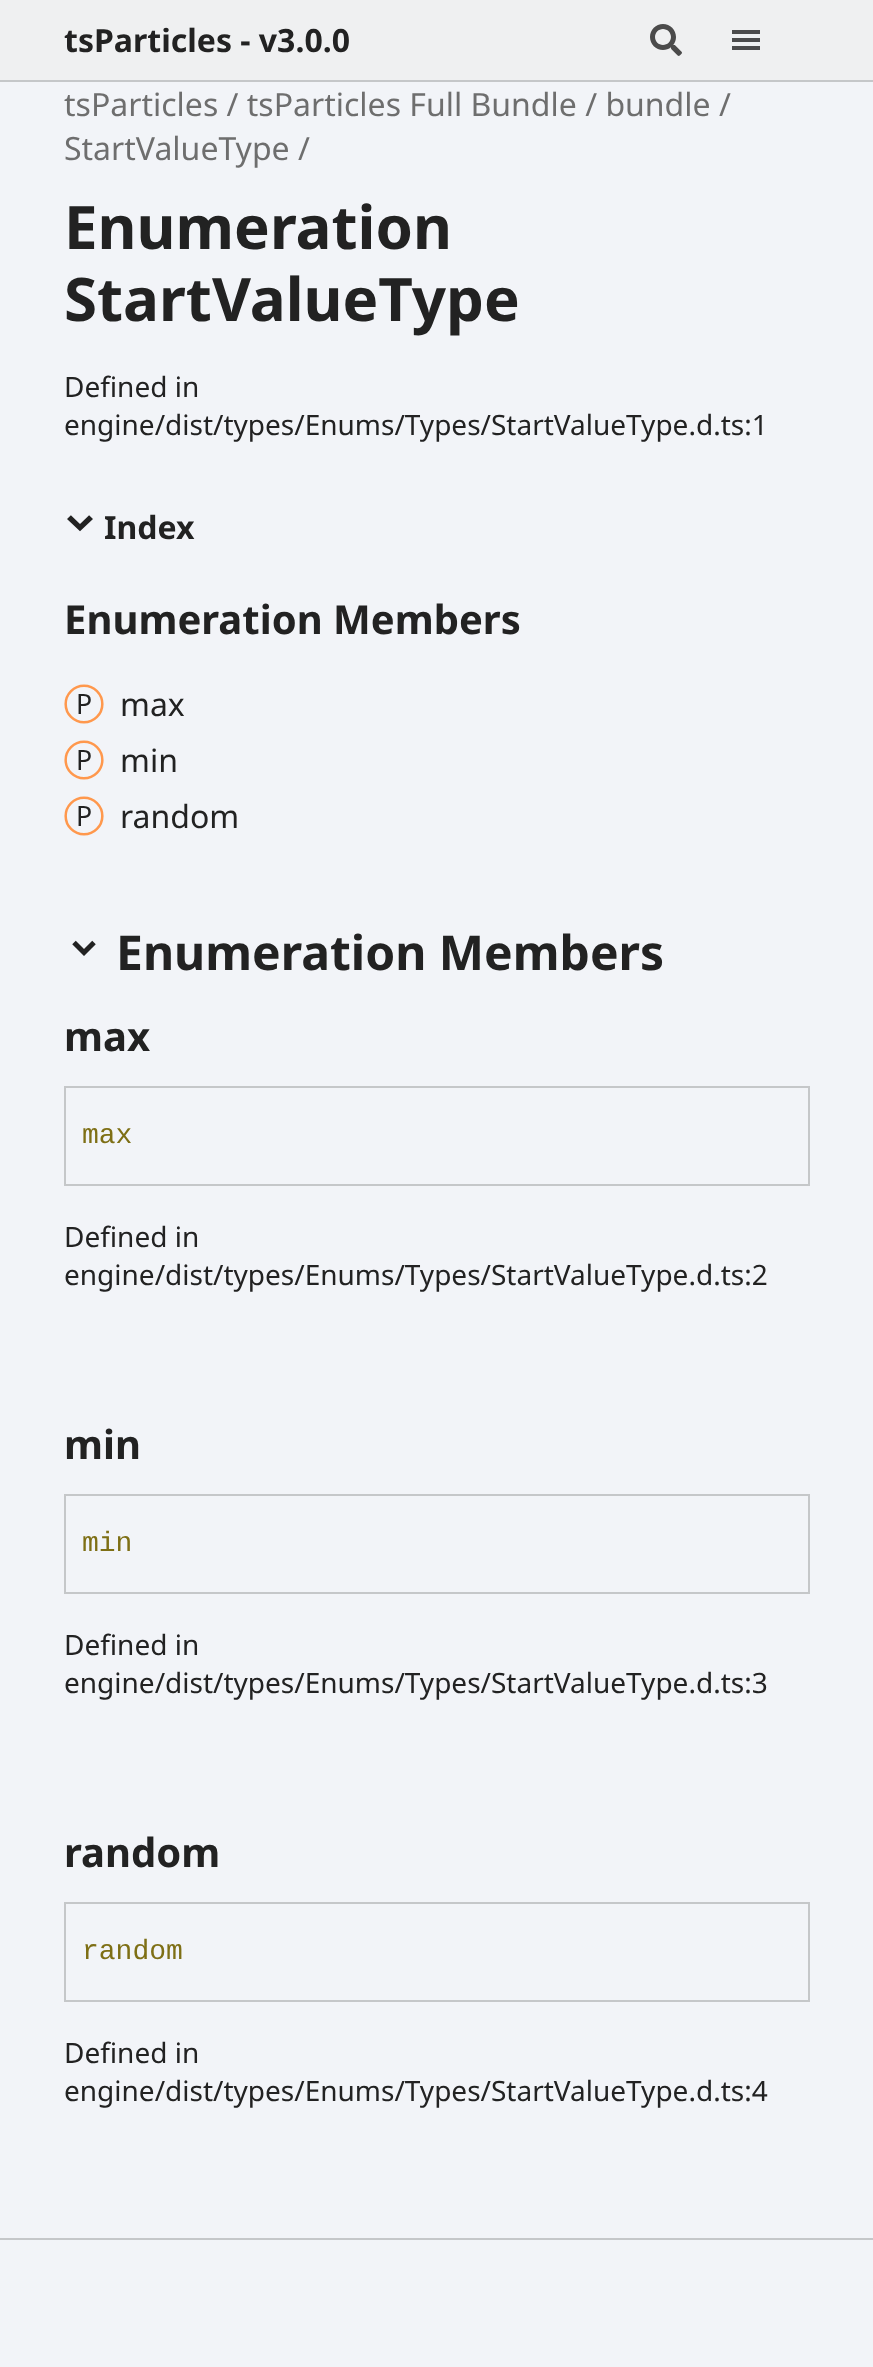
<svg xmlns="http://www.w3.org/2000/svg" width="873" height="2367">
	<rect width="100%" height="100%" fill="#F2F4F8" />
	<rect x="0" y="0" width="873" height="80" fill="#EFF0F1" />
	<rect x="0" y="80" width="873" height="2" fill="#C5C7C9" />
	<text x="64" y="52" font-family="Noto Sans" font-size="32" font-weight="700" fill="#222222">tsParticles - v3.0.0</text>
	<image x="650" y="24" width="32" height="32" href="assets/img1.png" />
	<image x="732" y="30" width="28" height="20" href="assets/img2.png" />
	<g font-family="Noto Sans" font-size="32" fill="#6E6E6E">
		<text x="64" y="116">tsParticles / tsParticles Full Bundle / bundle /</text>
		<text x="64" y="160">StartValueType /</text>
	</g>
	<g font-family="Noto Sans" font-size="60" font-weight="700" fill="#222222">
		<text x="64" y="249">Enumeration</text>
		<text x="64" y="321">StartValueType</text>
	</g>
	<g font-family="Noto Sans" font-size="28" fill="#222222">
		<text x="64" y="397">Defined in</text>
		<text x="64" y="435">engine/dist/types/Enums/Types/StartValueType.d.ts:1</text>
	</g>
	<image x="67" y="515" width="26" height="17" href="assets/img3.png" />
	<text x="104" y="539" font-family="Noto Sans" font-size="32" font-weight="700" fill="#222222">Index</text>
	<text x="64" y="634" font-family="Noto Sans" font-size="40" font-weight="700" fill="#222222">Enumeration Members</text>
	<image x="64" y="684" width="40" height="40" href="assets/img4.png" />
	<text x="120" y="716" font-family="Noto Sans" font-size="32" fill="#222222">max</text>
	<image x="64" y="740" width="40" height="40" href="assets/img5.png" />
	<text x="120" y="772" font-family="Noto Sans" font-size="32" fill="#222222">min</text>
	<image x="64" y="796" width="40" height="40" href="assets/img4.png" />
	<text x="120" y="828" font-family="Noto Sans" font-size="32" fill="#222222">random</text>
	<image x="72" y="940" width="24" height="16" href="assets/img6.png" />
	<text x="116" y="970" font-family="Noto Sans" font-size="48" font-weight="700" fill="#222222">Enumeration Members</text>
	<text x="64" y="1051" font-family="Noto Sans" font-size="40" font-weight="700" fill="#222222">max</text>
	<rect x="65" y="1087" width="744" height="98" fill="none" stroke="#C5C7C9" stroke-width="2" />
	<text x="82" y="1143" font-family="Liberation Mono" font-size="28" fill="#7E6F15">max</text>
	<g font-family="Noto Sans" font-size="28" fill="#222222">
		<text x="64" y="1247">Defined in</text>
		<text x="64" y="1285">engine/dist/types/Enums/Types/StartValueType.d.ts:2</text>
	</g>
	<text x="64" y="1459" font-family="Noto Sans" font-size="40" font-weight="700" fill="#222222">min</text>
	<rect x="65" y="1495" width="744" height="98" fill="none" stroke="#C5C7C9" stroke-width="2" />
	<text x="82" y="1551" font-family="Liberation Mono" font-size="28" fill="#7E6F15">min</text>
	<g font-family="Noto Sans" font-size="28" fill="#222222">
		<text x="64" y="1655">Defined in</text>
		<text x="64" y="1693">engine/dist/types/Enums/Types/StartValueType.d.ts:3</text>
	</g>
	<text x="64" y="1867" font-family="Noto Sans" font-size="40" font-weight="700" fill="#222222">random</text>
	<rect x="65" y="1903" width="744" height="98" fill="none" stroke="#C5C7C9" stroke-width="2" />
	<text x="82" y="1959" font-family="Liberation Mono" font-size="28" fill="#7E6F15">random</text>
	<g font-family="Noto Sans" font-size="28" fill="#222222">
		<text x="64" y="2063">Defined in</text>
		<text x="64" y="2101">engine/dist/types/Enums/Types/StartValueType.d.ts:4</text>
	</g>
	<rect x="0" y="2238" width="873" height="2" fill="#C5C7C9" />
</svg>
